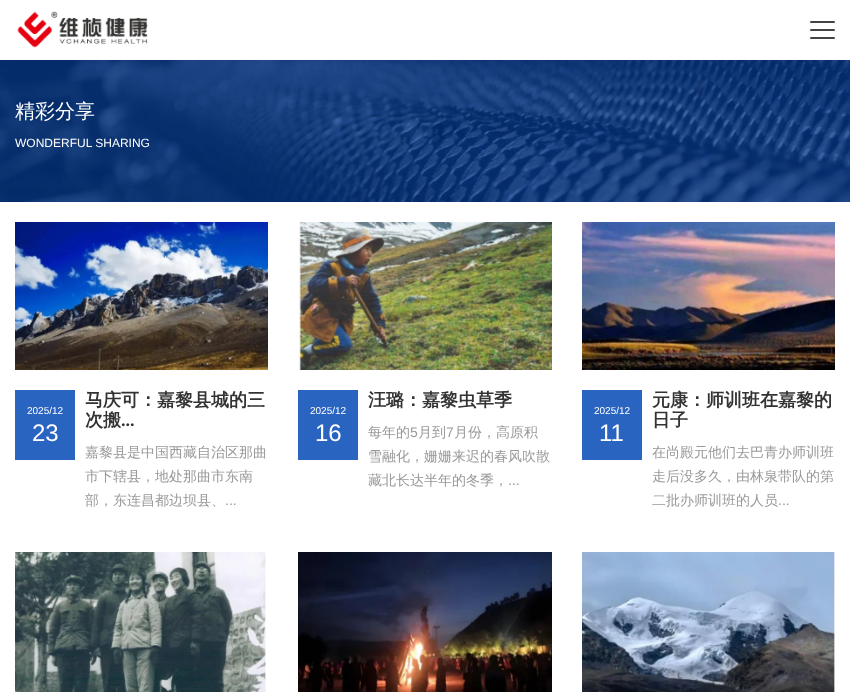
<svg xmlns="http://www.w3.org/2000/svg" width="850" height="692">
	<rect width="100%" height="100%" fill="#FFFFFF" />
	<image x="17" y="11" width="131" height="37" href="assets/img1.png" />
	<rect x="810" y="21" width="25" height="2" rx="1" fill="#444444" />
	<rect x="810" y="29" width="25" height="2" rx="1" fill="#444444" />
	<rect x="810" y="37" width="25" height="2" rx="1" fill="#444444" />
	<image x="0" y="60" width="850" height="142" href="assets/img2.png" />
	<text x="15" y="118" font-family="WenQuanYi Zen Hei" font-size="20" font-weight="500" fill="#FFFFFF">精彩分享</text>
	<text x="15" y="147" font-family="Liberation Sans" font-size="12" fill="#FFFFFF">WONDERFUL SHARING</text>
	<image x="15" y="222" width="253" height="148" href="assets/img3.png" />
	<rect x="15" y="390" width="60" height="70" fill="#2A64C1" />
	<text x="27" y="414" font-family="Liberation Sans" font-size="10" fill="#FFFFFF">2025/12</text>
	<text x="32" y="441" font-family="Liberation Sans" font-size="24" fill="#FFFFFF">23</text>
	<g font-family="WenQuanYi Zen Hei" font-size="18" font-weight="700" fill="#333333">
		<text x="85" y="406">马庆可：嘉黎县城的三</text>
		<text x="85" y="426">次搬</text>
	</g>
	<text x="121" y="426" font-family="Liberation Serif" font-size="18" font-weight="700" fill="#333333">...</text>
	<g font-family="WenQuanYi Zen Hei" font-size="14" font-weight="500" fill="#999999">
		<text x="85" y="457">嘉黎县是中国西藏自治区那曲</text>
		<text x="85" y="481">市下辖县，地处那曲市东南</text>
		<text x="85" y="505">部，东连昌都边坝县、</text>
	</g>
	<text x="225" y="505" font-family="Liberation Sans" font-size="14" fill="#999999">...</text>
	<image x="299" y="222" width="253" height="148" href="assets/img4.png" />
	<rect x="298" y="390" width="60" height="70" fill="#2A64C1" />
	<text x="310" y="414" font-family="Liberation Sans" font-size="10" fill="#FFFFFF">2025/12</text>
	<text x="315" y="441" font-family="Liberation Sans" font-size="24" fill="#FFFFFF">16</text>
	<text x="368" y="406" font-family="WenQuanYi Zen Hei" font-size="18" font-weight="700" fill="#333333">汪璐：嘉黎虫草季</text>
	<text x="368" y="437" font-family="WenQuanYi Zen Hei" font-size="14" font-weight="500" fill="#999999">每年的</text>
	<text x="410" y="437" font-family="Liberation Sans" font-size="14" fill="#999999">5</text>
	<text x="418" y="437" font-family="WenQuanYi Zen Hei" font-size="14" font-weight="500" fill="#999999">月到</text>
	<text x="446" y="437" font-family="Liberation Sans" font-size="14" fill="#999999">7</text>
	<g font-family="WenQuanYi Zen Hei" font-size="14" font-weight="500" fill="#999999">
		<text x="454" y="437">月份，高原积</text>
		<text x="368" y="461">雪融化，姗姗来迟的春风吹散</text>
		<text x="368" y="485">藏北长达半年的冬季，</text>
	</g>
	<text x="508" y="485" font-family="Liberation Sans" font-size="14" fill="#999999">...</text>
	<image x="582" y="222" width="253" height="148" href="assets/img5.png" />
	<rect x="582" y="390" width="60" height="70" fill="#2A64C1" />
	<text x="594" y="414" font-family="Liberation Sans" font-size="10" fill="#FFFFFF">2025/12</text>
	<text x="599" y="441" font-family="Liberation Sans" font-size="24" fill="#FFFFFF">11</text>
	<g font-family="WenQuanYi Zen Hei" font-size="18" font-weight="700" fill="#333333">
		<text x="652" y="406">元康：师训班在嘉黎的</text>
		<text x="652" y="426">日子</text>
	</g>
	<g font-family="WenQuanYi Zen Hei" font-size="14" font-weight="500" fill="#999999">
		<text x="652" y="457">在尚殿元他们去巴青办师训班</text>
		<text x="652" y="481">走后没多久，由林泉带队的第</text>
		<text x="652" y="505">二批办师训班的人员</text>
	</g>
	<text x="778" y="505" font-family="Liberation Sans" font-size="14" fill="#999999">...</text>
	<image x="15" y="552" width="251" height="140" href="assets/img6.png" />
	<image x="298" y="552" width="254" height="140" href="assets/img7.png" />
	<image x="582" y="552" width="253" height="140" href="assets/img8.png" />
</svg>
